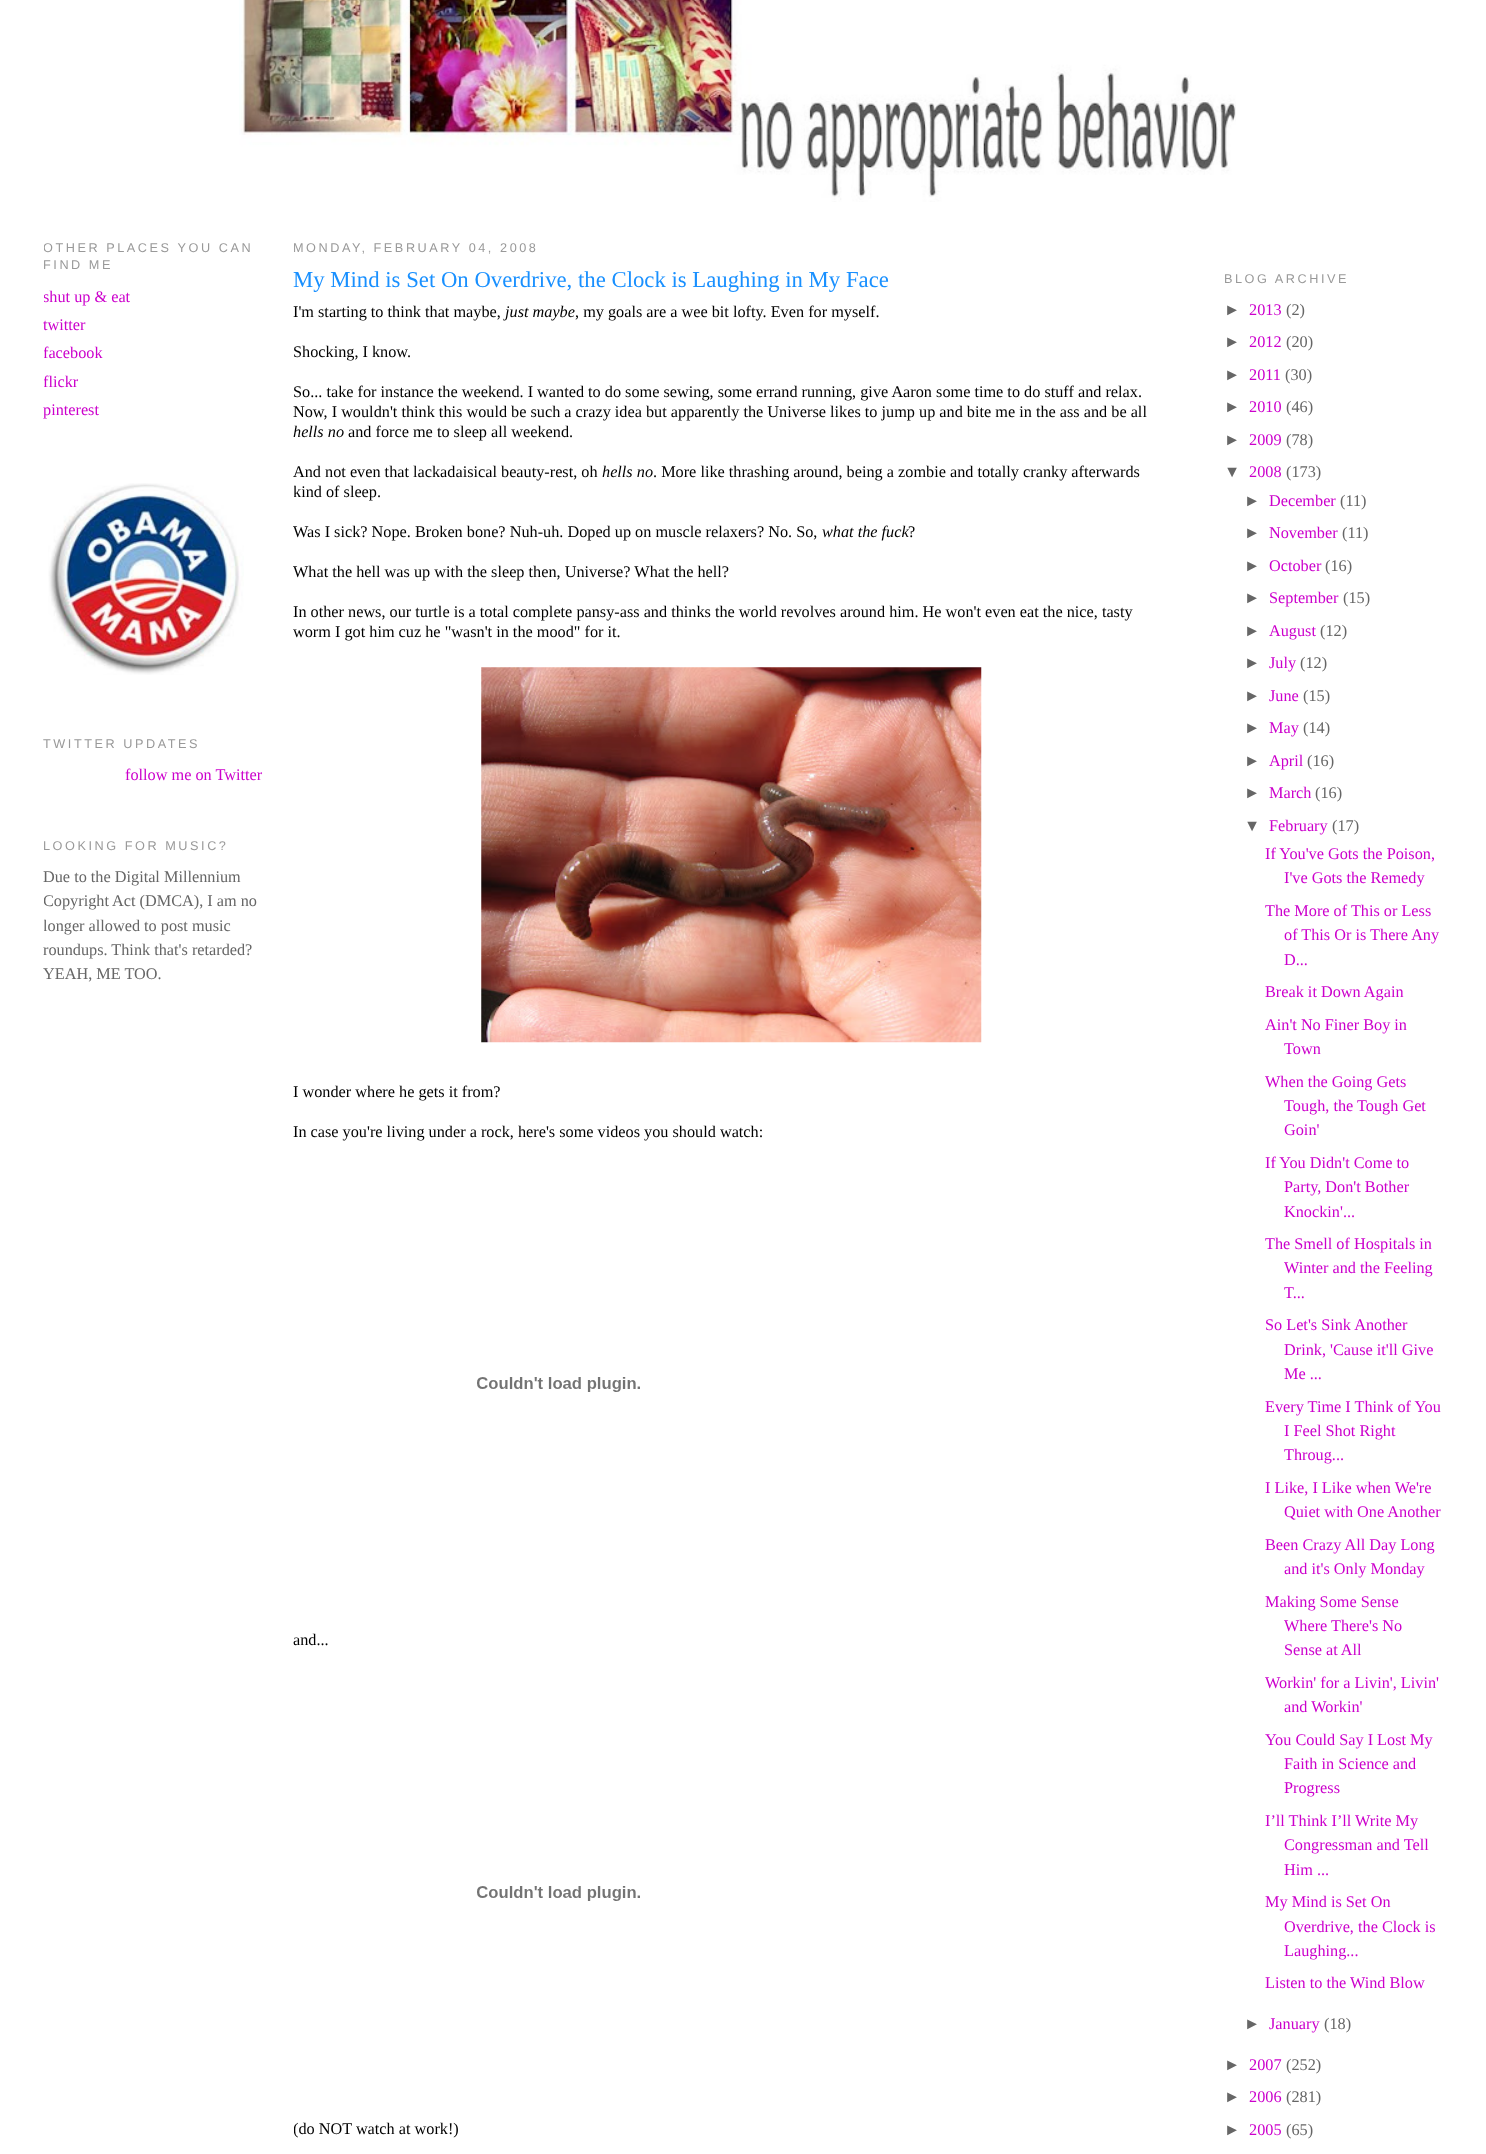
<svg xmlns="http://www.w3.org/2000/svg" width="1486" height="2154">
	<defs>
		<clipPath id="clip1"><rect x="44" y="220" width="219" height="816" /></clipPath>
		<clipPath id="clip2"><rect x="294" y="220" width="875" height="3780" /></clipPath>
	</defs>
	<rect width="100%" height="100%" fill="#FFFFFF" />
	<image x="239" y="0" width="997" height="202" href="assets/img1.png" />
	<g clip-path="url(#clip1)">
		<text x="43" y="252" font-family="Liberation Sans" font-size="12.7" letter-spacing="2.55" fill="#999999">OTHER PLACES YOU CAN</text>
	</g>
	<text x="43" y="269" font-family="Liberation Sans" font-size="12.7" letter-spacing="2.55" fill="#999999">FIND ME</text>
	<g clip-path="url(#clip1)">
		<text x="43" y="302" font-family="Liberation Serif" font-size="16.25" fill="#CC00CC">shut up &amp; eat</text>
	</g>
	<text x="43" y="330" font-family="Liberation Serif" font-size="16.25" fill="#CC00CC">twitter</text>
	<g clip-path="url(#clip1)">
		<g font-family="Liberation Serif" font-size="16.25" fill="#CC00CC">
			<text x="43" y="358">facebook</text>
			<text x="43" y="387">flickr</text>
		</g>
	</g>
	<text x="43" y="415" font-family="Liberation Serif" font-size="16.25" fill="#CC00CC">pinterest</text>
	<image x="48" y="483" width="196" height="192" href="assets/img2.png" />
	<text x="43" y="748" font-family="Liberation Sans" font-size="12.7" letter-spacing="2.55" fill="#999999">TWITTER UPDATES</text>
	<text x="125" y="780" font-family="Liberation Serif" font-size="16.25" fill="#CC00CC">follow me on Twitter</text>
	<text x="43" y="850" font-family="Liberation Sans" font-size="12.7" letter-spacing="2.55" fill="#999999">LOOKING FOR MUSIC?</text>
	<text x="43" y="882" font-family="Liberation Serif" font-size="16.25" fill="#666666">Due to the Digital Millennium</text>
	<g clip-path="url(#clip1)">
		<g font-family="Liberation Serif" font-size="16.25" fill="#666666">
			<text x="43" y="906">Copyright Act (DMCA), I am no</text>
			<text x="43" y="931">longer allowed to post music</text>
		</g>
	</g>
	<g font-family="Liberation Serif" font-size="16.25" fill="#666666">
		<text x="43" y="955">roundups. Think that's retarded?</text>
		<text x="43" y="979">YEAH, ME TOO.</text>
	</g>
	<text x="293" y="252" font-family="Liberation Sans" font-size="12.7" letter-spacing="2.55" fill="#999999">MONDAY, FEBRUARY 04, 2008</text>
	<text x="293" y="287" font-family="Liberation Serif" font-size="22.75" fill="#1990FF">My Mind is Set On Overdrive, the Clock is Laughing in My Face</text>
	<text x="293" y="317" font-family="Liberation Serif" font-size="16.25" fill="#000000">I'm starting to think that maybe,</text>
	<text x="505" y="317" font-family="Liberation Serif" font-size="16.25" font-style="italic" fill="#000000">just maybe</text>
	<g font-family="Liberation Serif" font-size="16.25" fill="#000000">
		<text x="575" y="317">, my goals are a wee bit lofty. Even for myself.</text>
		<text x="293" y="357">Shocking, I know.</text>
		<text x="293" y="397">So... take for instance the weekend. I wanted to do some sewing, some errand running, give Aaron some time to do stuff and relax.</text>
		<text x="293" y="417">Now, I wouldn't think this would be such a crazy idea but apparently the Universe likes to jump up and bite me in the ass and be all</text>
	</g>
	<text x="293" y="437" font-family="Liberation Serif" font-size="16.25" font-style="italic" fill="#000000">hells no</text>
	<g font-family="Liberation Serif" font-size="16.25" fill="#000000">
		<text x="348" y="437">and force me to sleep all weekend.</text>
		<text x="293" y="477">And not even that lackadaisical beauty-rest, oh</text>
	</g>
	<text x="602" y="477" font-family="Liberation Serif" font-size="16.25" font-style="italic" fill="#000000">hells no</text>
	<text x="653" y="477" font-family="Liberation Serif" font-size="16.25" fill="#000000">. More like thrashing around, being a zombie and totally cranky afterwards</text>
	<g clip-path="url(#clip2)">
		<text x="293" y="497" font-family="Liberation Serif" font-size="16.25" fill="#000000">kind of sleep.</text>
	</g>
	<text x="293" y="537" font-family="Liberation Serif" font-size="16.25" fill="#000000">Was I sick? Nope. Broken bone? Nuh-uh. Doped up on muscle relaxers? No. So,</text>
	<text x="822" y="537" font-family="Liberation Serif" font-size="16.25" font-style="italic" fill="#000000">what the fuck</text>
	<g font-family="Liberation Serif" font-size="16.25" fill="#000000">
		<text x="908" y="537">?</text>
		<text x="293" y="577">What the hell was up with the sleep then, Universe? What the hell?</text>
		<text x="293" y="617">In other news, our turtle is a total complete pansy-ass and thinks the world revolves around him. He won't even eat the nice, tasty</text>
		<text x="293" y="637">worm I got him cuz he "wasn't in the mood" for it.</text>
	</g>
	<image x="481" y="667" width="501" height="376" href="assets/img3.png" />
	<g font-family="Liberation Serif" font-size="16.25" fill="#000000">
		<text x="293" y="1097">I wonder where he gets it from?</text>
		<text x="293" y="1137">In case you're living under a rock, here's some videos you should watch:</text>
	</g>
	<image x="477" y="1377" width="163" height="15" href="assets/img4.png" />
	<text x="293" y="1645" font-family="Liberation Serif" font-size="16.25" fill="#000000">and...</text>
	<image x="477" y="1886" width="163" height="15" href="assets/img4.png" />
	<g clip-path="url(#clip2)">
		<text x="293" y="2134" font-family="Liberation Serif" font-size="16.25" fill="#000000">(do NOT watch at work!)</text>
	</g>
	<text x="1224" y="283" font-family="Liberation Sans" font-size="12.7" letter-spacing="2.55" fill="#999999">BLOG ARCHIVE</text>
	<text x="1224" y="315" font-family="Liberation Sans" font-size="16.25" fill="#666666">►</text>
	<text x="1249" y="315" font-family="Liberation Serif" font-size="16.25" fill="#CC00CC">2013</text>
	<text x="1286" y="315" font-family="Liberation Serif" font-size="16.25" fill="#666666">(2)</text>
	<text x="1224" y="347" font-family="Liberation Sans" font-size="16.25" fill="#666666">►</text>
	<text x="1249" y="347" font-family="Liberation Serif" font-size="16.25" fill="#CC00CC">2012</text>
	<text x="1286" y="347" font-family="Liberation Serif" font-size="16.25" fill="#666666">(20)</text>
	<text x="1224" y="380" font-family="Liberation Sans" font-size="16.25" fill="#666666">►</text>
	<text x="1249" y="380" font-family="Liberation Serif" font-size="16.25" fill="#CC00CC">2011</text>
	<text x="1285" y="380" font-family="Liberation Serif" font-size="16.25" fill="#666666">(30)</text>
	<text x="1224" y="412" font-family="Liberation Sans" font-size="16.25" fill="#666666">►</text>
	<text x="1249" y="412" font-family="Liberation Serif" font-size="16.25" fill="#CC00CC">2010</text>
	<text x="1286" y="412" font-family="Liberation Serif" font-size="16.25" fill="#666666">(46)</text>
	<text x="1224" y="445" font-family="Liberation Sans" font-size="16.25" fill="#666666">►</text>
	<text x="1249" y="445" font-family="Liberation Serif" font-size="16.25" fill="#CC00CC">2009</text>
	<text x="1286" y="445" font-family="Liberation Serif" font-size="16.25" fill="#666666">(78)</text>
	<text x="1224" y="477" font-family="Liberation Sans" font-size="16.25" fill="#666666">▼</text>
	<text x="1249" y="477" font-family="Liberation Serif" font-size="16.25" fill="#CC00CC">2008</text>
	<text x="1286" y="477" font-family="Liberation Serif" font-size="16.25" fill="#666666">(173)</text>
	<text x="1244" y="506" font-family="Liberation Sans" font-size="16.25" fill="#666666">►</text>
	<text x="1269" y="506" font-family="Liberation Serif" font-size="16.25" fill="#CC00CC">December</text>
	<text x="1340" y="506" font-family="Liberation Serif" font-size="16.25" fill="#666666">(11)</text>
	<text x="1244" y="538" font-family="Liberation Sans" font-size="16.25" fill="#666666">►</text>
	<text x="1269" y="538" font-family="Liberation Serif" font-size="16.25" fill="#CC00CC">November</text>
	<text x="1342" y="538" font-family="Liberation Serif" font-size="16.25" fill="#666666">(11)</text>
	<text x="1244" y="571" font-family="Liberation Sans" font-size="16.25" fill="#666666">►</text>
	<text x="1269" y="571" font-family="Liberation Serif" font-size="16.25" fill="#CC00CC">October</text>
	<text x="1325" y="571" font-family="Liberation Serif" font-size="16.25" fill="#666666">(16)</text>
	<text x="1244" y="603" font-family="Liberation Sans" font-size="16.25" fill="#666666">►</text>
	<text x="1269" y="603" font-family="Liberation Serif" font-size="16.25" fill="#CC00CC">September</text>
	<text x="1343" y="603" font-family="Liberation Serif" font-size="16.25" fill="#666666">(15)</text>
	<text x="1244" y="636" font-family="Liberation Sans" font-size="16.25" fill="#666666">►</text>
	<text x="1269" y="636" font-family="Liberation Serif" font-size="16.25" fill="#CC00CC">August</text>
	<text x="1320" y="636" font-family="Liberation Serif" font-size="16.25" fill="#666666">(12)</text>
	<text x="1244" y="668" font-family="Liberation Sans" font-size="16.25" fill="#666666">►</text>
	<text x="1269" y="668" font-family="Liberation Serif" font-size="16.25" fill="#CC00CC">July</text>
	<text x="1300" y="668" font-family="Liberation Serif" font-size="16.25" fill="#666666">(12)</text>
	<text x="1244" y="701" font-family="Liberation Sans" font-size="16.25" fill="#666666">►</text>
	<text x="1269" y="701" font-family="Liberation Serif" font-size="16.25" fill="#CC00CC">June</text>
	<text x="1303" y="701" font-family="Liberation Serif" font-size="16.25" fill="#666666">(15)</text>
	<text x="1244" y="733" font-family="Liberation Sans" font-size="16.25" fill="#666666">►</text>
	<text x="1269" y="733" font-family="Liberation Serif" font-size="16.25" fill="#CC00CC">May</text>
	<text x="1303" y="733" font-family="Liberation Serif" font-size="16.25" fill="#666666">(14)</text>
	<text x="1244" y="766" font-family="Liberation Sans" font-size="16.25" fill="#666666">►</text>
	<text x="1269" y="766" font-family="Liberation Serif" font-size="16.25" fill="#CC00CC">April</text>
	<text x="1307" y="766" font-family="Liberation Serif" font-size="16.25" fill="#666666">(16)</text>
	<text x="1244" y="798" font-family="Liberation Sans" font-size="16.25" fill="#666666">►</text>
	<text x="1269" y="798" font-family="Liberation Serif" font-size="16.25" fill="#CC00CC">March</text>
	<text x="1315" y="798" font-family="Liberation Serif" font-size="16.25" fill="#666666">(16)</text>
	<text x="1244" y="831" font-family="Liberation Sans" font-size="16.25" fill="#666666">▼</text>
	<text x="1269" y="831" font-family="Liberation Serif" font-size="16.25" fill="#CC00CC">February</text>
	<text x="1332" y="831" font-family="Liberation Serif" font-size="16.25" fill="#666666">(17)</text>
	<g font-family="Liberation Serif" font-size="16.25" fill="#CC00CC">
		<text x="1265" y="859">If You've Gots the Poison,</text>
		<text x="1284" y="883">I've Gots the Remedy</text>
		<text x="1265" y="916">The More of This or Less</text>
		<text x="1284" y="940">of This Or is There Any</text>
		<text x="1284" y="965">D...</text>
		<text x="1265" y="997">Break it Down Again</text>
		<text x="1265" y="1030">Ain't No Finer Boy in</text>
		<text x="1284" y="1054">Town</text>
		<text x="1265" y="1087">When the Going Gets</text>
		<text x="1284" y="1111">Tough, the Tough Get</text>
		<text x="1284" y="1135">Goin'</text>
		<text x="1265" y="1168">If You Didn't Come to</text>
		<text x="1284" y="1192">Party, Don't Bother</text>
		<text x="1284" y="1217">Knockin'...</text>
		<text x="1265" y="1249">The Smell of Hospitals in</text>
		<text x="1284" y="1273">Winter and the Feeling</text>
		<text x="1284" y="1298">T...</text>
		<text x="1265" y="1330">So Let's Sink Another</text>
		<text x="1284" y="1355">Drink, 'Cause it'll Give</text>
		<text x="1284" y="1379">Me ...</text>
		<text x="1265" y="1412">Every Time I Think of You</text>
		<text x="1284" y="1436">I Feel Shot Right</text>
		<text x="1284" y="1460">Throug...</text>
		<text x="1265" y="1493">I Like, I Like when We're</text>
		<text x="1284" y="1517">Quiet with One Another</text>
		<text x="1265" y="1550">Been Crazy All Day Long</text>
		<text x="1284" y="1574">and it's Only Monday</text>
		<text x="1265" y="1607">Making Some Sense</text>
		<text x="1284" y="1631">Where There's No</text>
		<text x="1284" y="1655">Sense at All</text>
		<text x="1265" y="1688">Workin' for a Livin', Livin'</text>
		<text x="1284" y="1712">and Workin'</text>
		<text x="1265" y="1745">You Could Say I Lost My</text>
		<text x="1284" y="1769">Faith in Science and</text>
		<text x="1284" y="1793">Progress</text>
		<text x="1265" y="1826">I’ll Think I’ll Write My</text>
		<text x="1284" y="1850">Congressman and Tell</text>
		<text x="1284" y="1875">Him ...</text>
		<text x="1265" y="1907">My Mind is Set On</text>
		<text x="1284" y="1932">Overdrive, the Clock is</text>
		<text x="1284" y="1956">Laughing...</text>
		<text x="1265" y="1988">Listen to the Wind Blow</text>
	</g>
	<text x="1244" y="2029" font-family="Liberation Sans" font-size="16.25" fill="#666666">►</text>
	<text x="1269" y="2029" font-family="Liberation Serif" font-size="16.25" fill="#CC00CC">January</text>
	<text x="1324" y="2029" font-family="Liberation Serif" font-size="16.25" fill="#666666">(18)</text>
	<text x="1224" y="2070" font-family="Liberation Sans" font-size="16.25" fill="#666666">►</text>
	<text x="1249" y="2070" font-family="Liberation Serif" font-size="16.25" fill="#CC00CC">2007</text>
	<text x="1286" y="2070" font-family="Liberation Serif" font-size="16.25" fill="#666666">(252)</text>
	<text x="1224" y="2102" font-family="Liberation Sans" font-size="16.25" fill="#666666">►</text>
	<text x="1249" y="2102" font-family="Liberation Serif" font-size="16.25" fill="#CC00CC">2006</text>
	<text x="1286" y="2102" font-family="Liberation Serif" font-size="16.25" fill="#666666">(281)</text>
	<text x="1224" y="2135" font-family="Liberation Sans" font-size="16.25" fill="#666666">►</text>
	<text x="1249" y="2135" font-family="Liberation Serif" font-size="16.25" fill="#CC00CC">2005</text>
	<text x="1286" y="2135" font-family="Liberation Serif" font-size="16.25" fill="#666666">(65)</text>
</svg>
